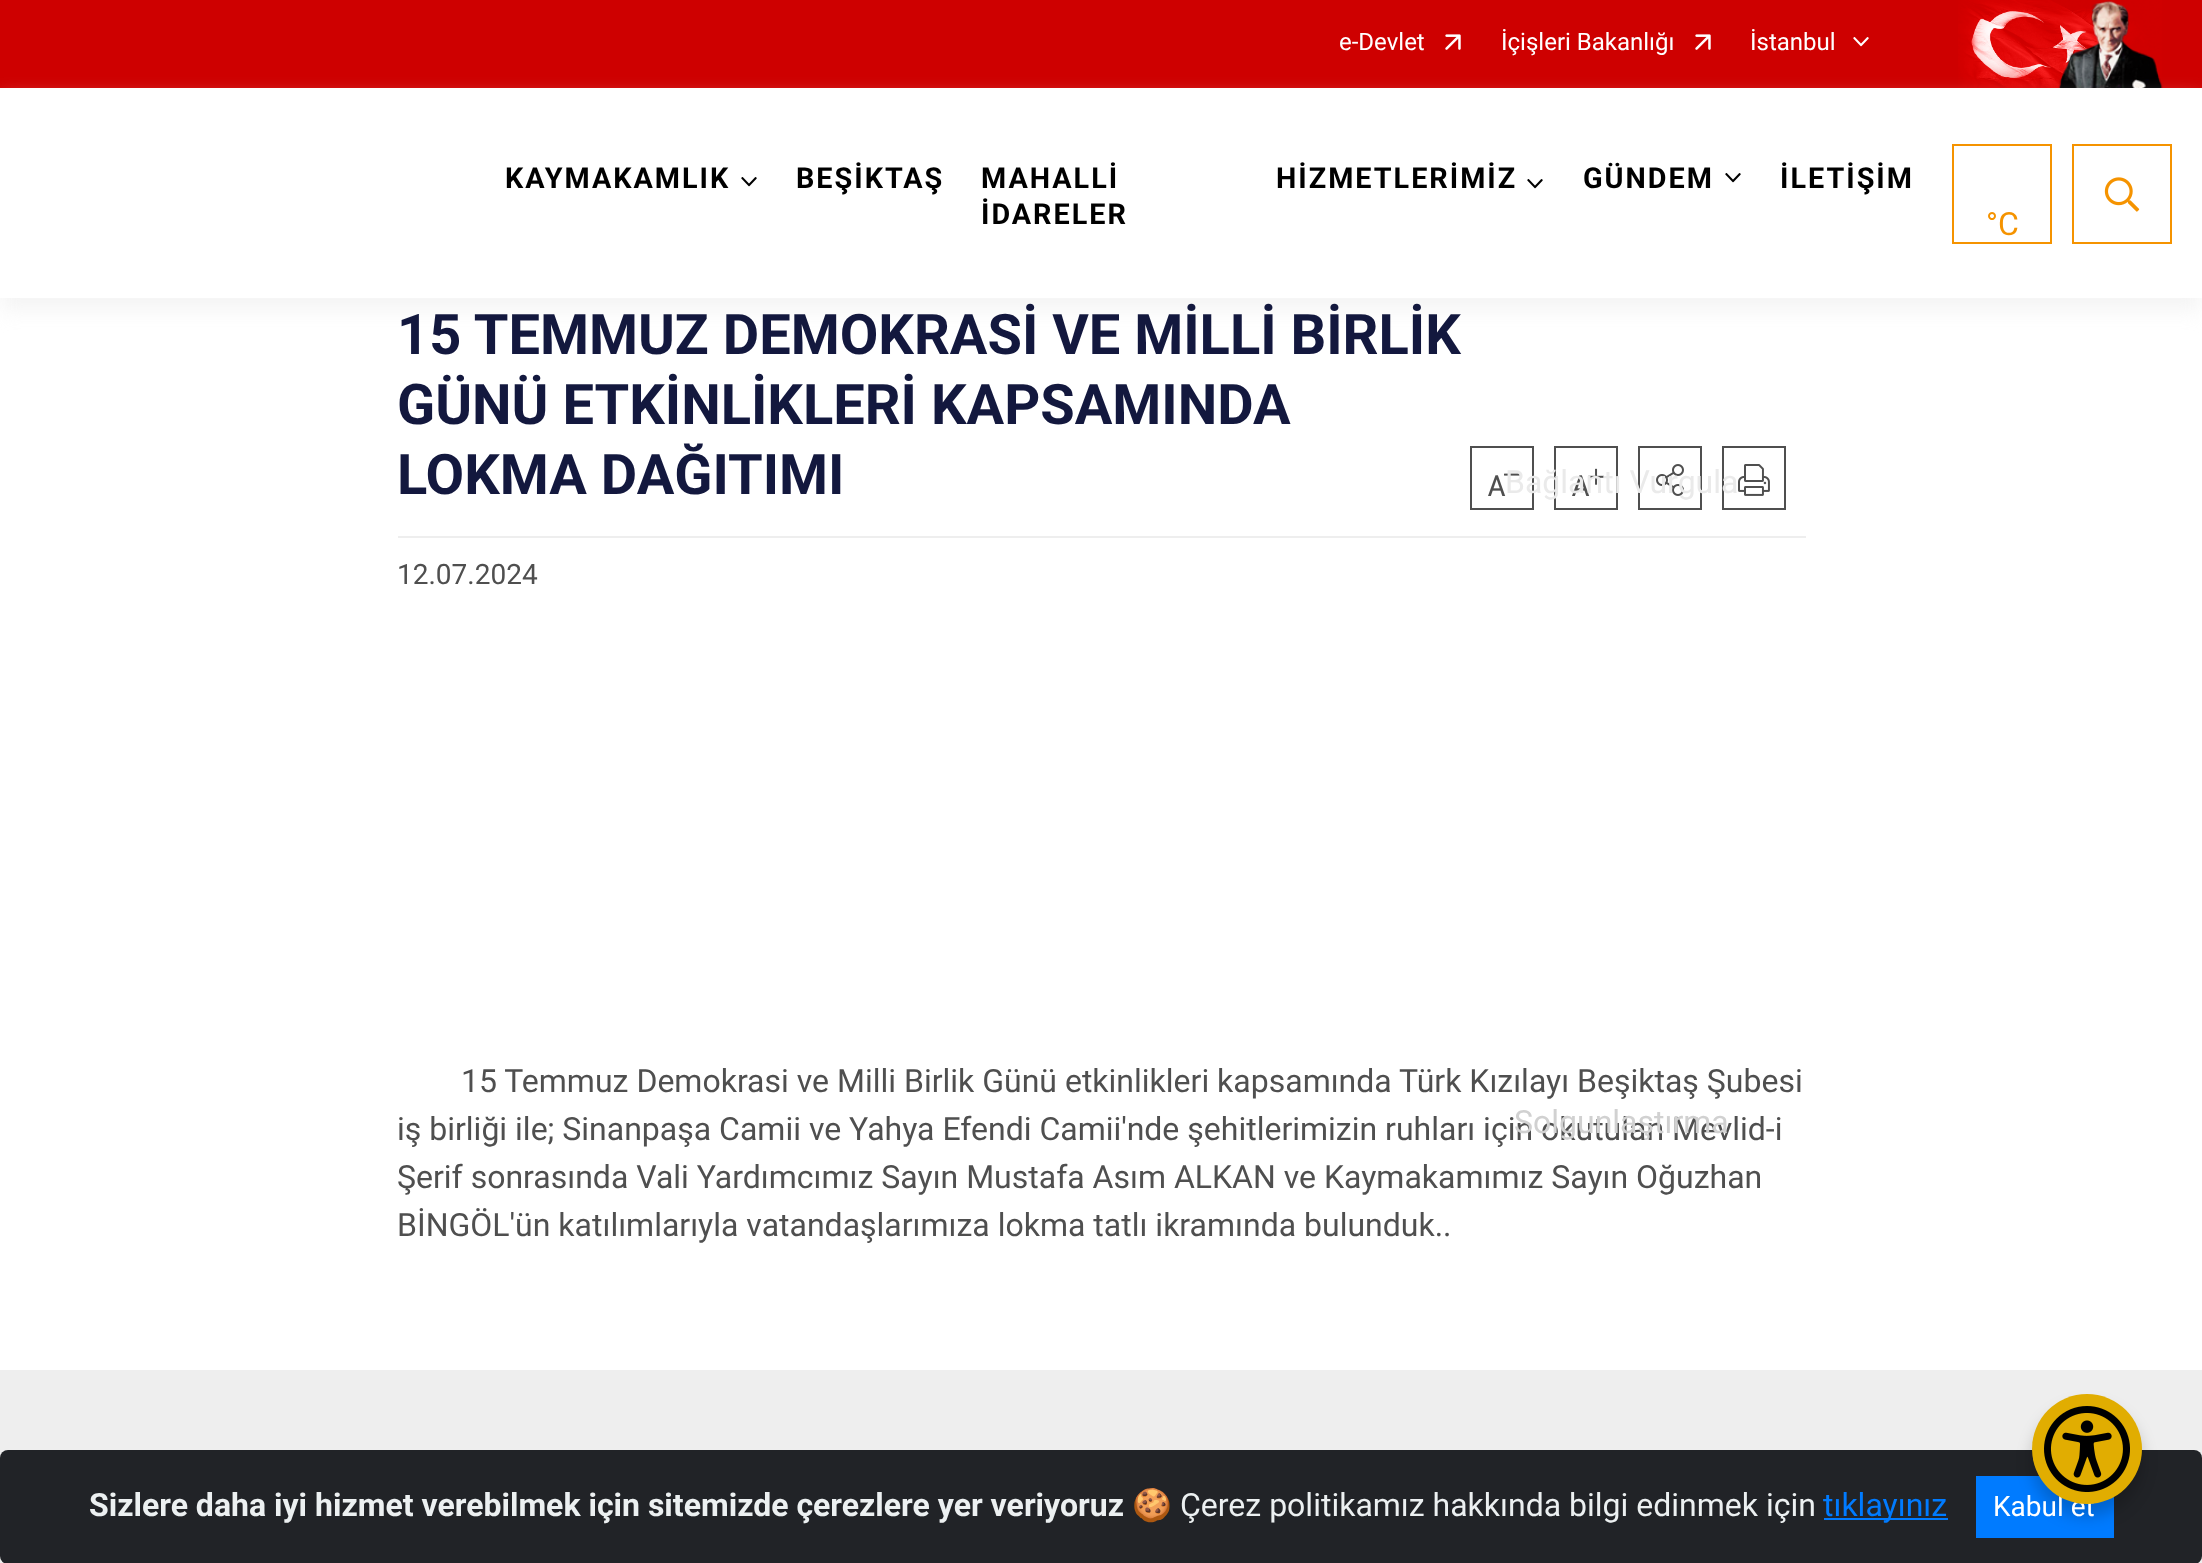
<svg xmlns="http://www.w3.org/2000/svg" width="2202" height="1563">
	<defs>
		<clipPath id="clip1"><path d="M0 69H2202V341H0ZM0 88H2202V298H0Z" clip-rule="evenodd" /></clipPath>
	</defs>
	<rect width="100%" height="100%" fill="#FFFFFF" />
	<rect x="0" y="0" width="2202" height="88" fill="#CE0000" />
	<text x="1339" y="50" font-family="Roboto" font-size="24" fill="#FFFFFF">e-Devlet</text>
	<image x="1445" y="34" width="16" height="16" href="assets/img1.png" />
	<text x="1501" y="50" font-family="Roboto" font-size="24" fill="#FFFFFF">İçişleri Bakanlığı</text>
	<image x="1695" y="34" width="16" height="16" href="assets/img1.png" />
	<text x="1750" y="50" font-family="Roboto" font-size="24" fill="#FFFFFF">İstanbul</text>
	<image x="1853" y="37" width="16" height="10" href="assets/img2.png" />
	<image x="1958" y="0" width="205" height="88" href="assets/img3.png" />
	<g clip-path="url(#clip1)">
		<rect x="0" y="100" width="2202" height="210" fill="#EEEEEE" fill-opacity="0.62" filter="blur(10px)" />
	</g>
	<text x="505" y="188" font-family="Roboto" font-size="28.75" font-weight="700" letter-spacing="2" fill="#000000">KAYMAKAMLIK</text>
	<image x="741" y="177" width="16" height="10" href="assets/img4.png" />
	<g font-family="Roboto" font-size="28.75" font-weight="700" letter-spacing="2" fill="#000000">
		<text x="796" y="188">BEŞİKTAŞ</text>
		<text x="981" y="188">MAHALLİ</text>
		<text x="981" y="224">İDARELER</text>
		<text x="1276" y="188">HİZMETLERİMİZ</text>
	</g>
	<image x="1527" y="179" width="16" height="10" href="assets/img4.png" />
	<text x="1583" y="188" font-family="Roboto" font-size="28.75" font-weight="700" letter-spacing="2" fill="#000000">GÜNDEM</text>
	<image x="1725" y="173" width="16" height="10" href="assets/img4.png" />
	<text x="1780" y="188" font-family="Roboto" font-size="28.75" font-weight="700" letter-spacing="2" fill="#000000">İLETİŞİM</text>
	<rect x="1953" y="145" width="98" height="98" fill="none" stroke="#F59300" stroke-width="2" />
	<text x="1986" y="235" font-family="Roboto" font-size="32" fill="#F59300">°C</text>
	<rect x="2073" y="145" width="98" height="98" fill="none" stroke="#F59300" stroke-width="2" />
	<image x="2104" y="177" width="36" height="35" href="assets/img5.png" />
	<rect x="398" y="536" width="1408" height="2" fill="#EEEEEE" />
	<g font-family="Roboto" font-size="56" font-weight="700" fill="#13183E">
		<text x="397" y="354">15 TEMMUZ DEMOKRASİ VE MİLLİ BİRLİK</text>
		<text x="397" y="424">GÜNÜ ETKİNLİKLERİ KAPSAMINDA</text>
		<text x="397" y="494">LOKMA DAĞITIMI</text>
	</g>
	<rect x="1471" y="447" width="62" height="62" fill="none" stroke="#4F4F4F" stroke-width="2" />
	<image x="1488" y="473" width="32" height="23" href="assets/img6.png" />
	<rect x="1555" y="447" width="62" height="62" fill="none" stroke="#4F4F4F" stroke-width="2" />
	<image x="1572" y="468" width="32" height="28" href="assets/img7.png" />
	<rect x="1639" y="447" width="62" height="62" fill="none" stroke="#4F4F4F" stroke-width="2" />
	<image x="1656" y="464" width="28" height="32" href="assets/img8.png" />
	<rect x="1723" y="447" width="62" height="62" fill="none" stroke="#4F4F4F" stroke-width="2" />
	<image x="1738" y="464" width="32" height="32" href="assets/img9.png" />
	<text x="397" y="584" font-family="Roboto" font-size="28" fill="#4F4F4F">12.07.2024</text>
	<g font-family="Roboto" font-size="32" fill="#4F4F4F">
		<text x="461" y="1092">15 Temmuz Demokrasi ve Milli Birlik Günü etkinlikleri kapsamında Türk Kızılayı Beşiktaş Şubesi</text>
		<text x="397" y="1140">iş birliği ile; Sinanpaşa Camii ve Yahya Efendi Camii'nde şehitlerimizin ruhları için okutulan Mevlid-i</text>
		<text x="397" y="1188">Şerif sonrasında Vali Yardımcımız Sayın Mustafa Asım ALKAN ve Kaymakamımız Sayın Oğuzhan</text>
		<text x="397" y="1236">BİNGÖL'ün katılımlarıyla vatandaşlarımıza lokma tatlı ikramında bulunduk..</text>
	</g>
	<rect x="0" y="1370" width="2202" height="193" fill="#EEEEEE" />
	<text x="1505" y="493" font-family="Roboto" font-size="32" fill="#EAEAEA">Bağlantı Vurgula</text>
	<text x="1514" y="1133" font-family="Roboto" font-size="32" fill="#D1D1D1">Solgunlaştırma</text>
	<rect x="0" y="1450" width="2202" height="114" rx="8" fill="#212327" />
	<rect x="1976" y="1476" width="138" height="62" fill="#007BFF" />
	<rect x="2032" y="1406" width="110" height="110" rx="55" fill="#000000" fill-opacity="0.2" filter="blur(8px)" />
	<text x="1993" y="1516" font-family="Roboto" font-size="28" fill="#FFFFFF">Kabul et</text>
	<circle cx="2087" cy="1449" r="55" fill="#E1AD01" />
	<image x="2044" y="1406" width="86" height="86" href="assets/img10.png" />
	<text x="89" y="1516" font-family="Roboto" font-size="32" font-weight="700" fill="#ECF0F1">Sizlere daha iyi hizmet verebilmek için sitemizde çerezlere yer veriyoruz</text>
	<text x="1132" y="1516" font-family="Noto Color Emoji" font-size="32" fill="#ECF0F1">🍪</text>
	<text x="1180" y="1516" font-family="Roboto" font-size="32" fill="#ECF0F1">Çerez politikamız hakkında bilgi edinmek için</text>
	<rect x="1824" y="1518" width="124" height="2" fill="#007BFF" />
	<text x="1823" y="1516" font-family="Roboto" font-size="32" fill="#007BFF">tıklayınız</text>
</svg>
